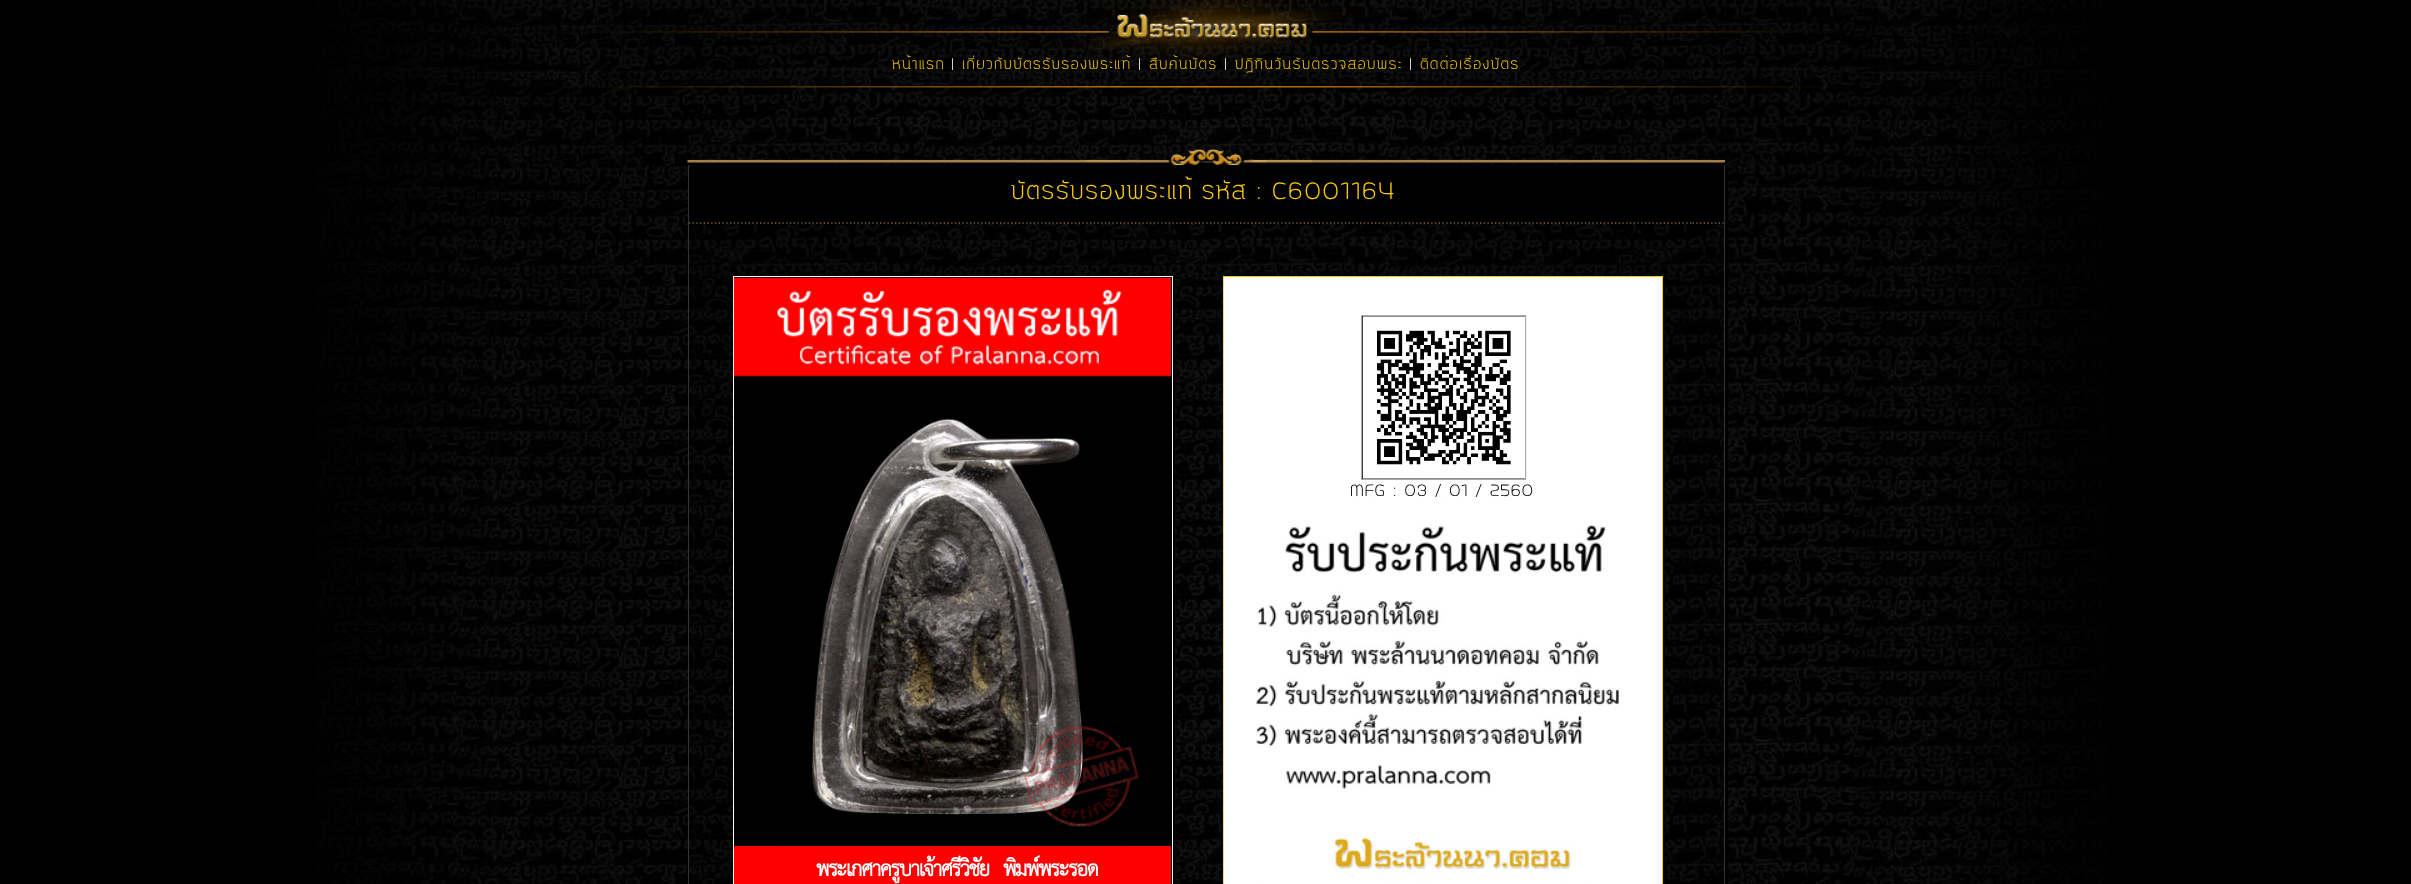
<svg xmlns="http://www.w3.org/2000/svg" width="2411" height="884">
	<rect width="100%" height="100%" fill="#000000" />
	<image x="317" y="0" width="1791" height="884" href="assets/img1.png" />
	<rect x="599" y="0" width="1277" height="87" fill="#000000" fill-opacity="0.2" />
	<image x="546" y="0" width="1324" height="61" href="assets/img2.png" />
	<text x="892" y="69" font-family="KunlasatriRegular" font-size="20" letter-spacing="1.25" fill="#FFCC00">หน้าแรก</text>
	<text x="951" y="69" font-family="KunlasatriRegular" font-size="20" letter-spacing="1.25" fill="#FFFFFF">|</text>
	<text x="962" y="69" font-family="KunlasatriRegular" font-size="20" letter-spacing="1.25" fill="#FFCC00">เกี่ยวกับบัตรรับรองพระแท้</text>
	<text x="1138" y="69" font-family="KunlasatriRegular" font-size="20" letter-spacing="1.25" fill="#FFFFFF">|</text>
	<text x="1149" y="69" font-family="KunlasatriRegular" font-size="20" letter-spacing="1.25" fill="#FFCC00">สืบค้นบัตร</text>
	<text x="1224" y="69" font-family="KunlasatriRegular" font-size="20" letter-spacing="1.25" fill="#FFFFFF">|</text>
	<text x="1235" y="69" font-family="KunlasatriRegular" font-size="20" letter-spacing="1.25" fill="#FFCC00">ปฏิทินวันรับตรวจสอบพระ</text>
	<text x="1409" y="69" font-family="KunlasatriRegular" font-size="20" letter-spacing="1.25" fill="#FFFFFF">|</text>
	<text x="1420" y="69" font-family="KunlasatriRegular" font-size="20" letter-spacing="1.25" fill="#FFCC00">ติดต่อเรื่องบัตร</text>
	<image x="578" y="86" width="1258" height="2" href="assets/img3.png" />
	<rect x="529" y="87" width="1362" height="797" fill="#000000" fill-opacity="0.2" />
	<image x="687" y="148" width="1038" height="17" href="assets/img4.png" />
	<path d="M690 224H1728V165H1725V224Z" fill="#000000" />
	<rect x="689" y="165" width="1035" height="59" fill="#000000" />
	<rect x="1724" y="165" width="1" height="719" fill="#333333" />
	<rect x="688" y="165" width="1" height="719" fill="#333333" />
	<text x="1011" y="199" word-spacing="-1.5" font-family="KunlasatriRegular" font-size="32.5" letter-spacing="1.25" fill="#FFCC00">บัตรรับรองพระแท้ รหัส : C6001164</text>
	<image x="689" y="222" width="1035" height="2" href="assets/img5.png" />
	<path d="M690 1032V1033H1728V224H1725V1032Z" fill="#000000" />
	<rect x="689" y="223" width="1035" height="661" fill="#000000" fill-opacity="0.2" />
	<path d="M1225 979V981H1665V279H1662V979Z" fill="#000000" />
	<rect x="1223.5" y="276.5" width="439" height="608" fill="#FFFFFF" stroke="#FFCC00" />
	<image x="1223" y="277" width="396" height="607" href="assets/img6.png" />
	<rect x="1361.5" y="315.5" width="164" height="164" fill="#000000" stroke="#AAAAAA" />
	<rect x="1526" y="315" width="1" height="165" fill="#F2F2F2" />
	<image x="1362" y="316" width="163" height="163" href="assets/img7.png" />
	<text x="1350" y="496" font-family="KunlasatriRegular" font-size="22.5" letter-spacing="0.6" fill="#000000">MFG : 03 / 01 / 2560</text>
	<path d="M735 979V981H1175V279H1172V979Z" fill="#000000" />
	<rect x="733.5" y="276.5" width="439" height="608" fill="#000000" stroke="#FFFFFF" />
	<image x="733" y="277" width="439" height="100" href="assets/img8.png" />
	<rect x="734" y="846" width="437" height="1" fill="#F20000" />
	<image x="779" y="418" width="346" height="429" href="assets/img9.png" />
	<image x="1023" y="720" width="116" height="107" href="assets/img10.png" />
	<rect x="734" y="847" width="437" height="37" fill="#FF0000" />
	<text x="816" y="876" word-spacing="9" font-family="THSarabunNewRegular" font-size="30" font-weight="700" letter-spacing="-1.25" fill="#FFFFFF">พระเกศาครูบาเจ้าศรีวิชัย พิมพ์พระรอด</text>
</svg>
